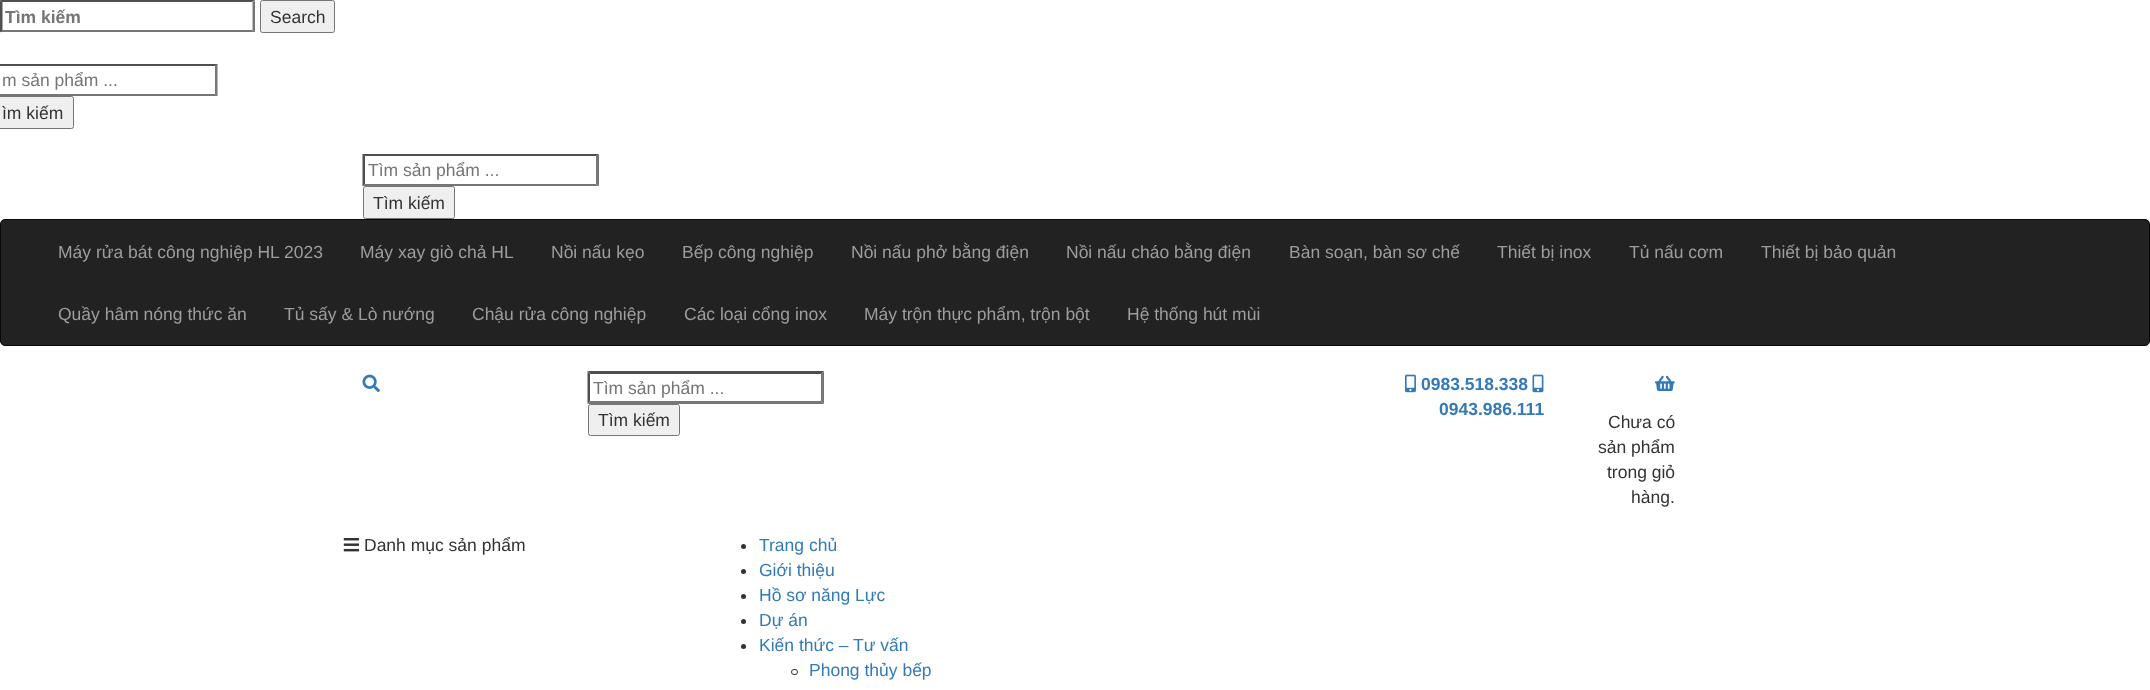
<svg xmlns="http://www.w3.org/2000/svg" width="2150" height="690">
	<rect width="100%" height="100%" fill="#FFFFFF" />
	<path d="M0 0H255L252 2H2Z" fill="#4F4F4F" />
	<path d="M255 0V32.5L252.5 30V2.5Z" fill="#767676" />
	<path d="M255 32H0L2 30H252Z" fill="#767676" />
	<path d="M0 32.5V0L2.5 2.5V30Z" fill="#4F4F4F" />
	<text x="5" y="23" font-family="Liberation Sans" font-size="17.5" font-weight="700" fill="#757575">Tìm kiếm</text>
	<rect x="260.5" y="0.5" width="74" height="32" rx="2" fill="#EFEFEF" stroke="#767676" />
	<text x="270" y="23" font-family="Liberation Sans" font-size="17.5" fill="#333333">Search</text>
	<path d="M-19 64H218L215 66H-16Z" fill="#4F4F4F" />
	<path d="M217.5 64V96L215 94V66Z" fill="#767676" />
	<path d="M218 96H-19L-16 94H215Z" fill="#767676" />
	<text x="2" y="86" font-family="Liberation Sans" font-size="17.5" fill="#757575">m sản phẩm ...</text>
	<rect x="-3.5" y="96.5" width="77" height="32" rx="2" fill="#EFEFEF" stroke="#767676" />
	<text x="2" y="119" font-family="Liberation Sans" font-size="17.5" fill="#333333">ìm kiếm</text>
	<path d="M362 154H599L596 156H365Z" fill="#4F4F4F" />
	<path d="M599 154V186L596 184V156Z" fill="#767676" />
	<path d="M599 186H362L365 184H596Z" fill="#767676" />
	<path d="M362.5 186V154L365 156V184Z" fill="#4F4F4F" />
	<text x="368" y="176" font-family="Liberation Sans" font-size="17.5" fill="#757575">Tìm sản phẩm ...</text>
	<rect x="363.5" y="186.5" width="91" height="32" rx="2" fill="#EFEFEF" stroke="#767676" />
	<text x="373" y="209" font-family="Liberation Sans" font-size="17.5" fill="#333333">Tìm kiếm</text>
	<rect x="0.5" y="219.5" width="2149" height="126" rx="4.5" fill="#222222" stroke="#080808" />
	<g font-family="Liberation Sans" font-size="17.5" fill="#9D9D9D">
		<text x="58" y="258">Máy rửa bát công nghiệp HL 2023</text>
		<text x="360" y="258">Máy xay giò chả HL</text>
		<text x="551" y="258">Nồi nấu kẹo</text>
		<text x="682" y="258">Bếp công nghiệp</text>
		<text x="851" y="258">Nồi nấu phở bằng điện</text>
		<text x="1066" y="258">Nồi nấu cháo bằng điện</text>
		<text x="1289" y="258">Bàn soạn, bàn sơ chế</text>
		<text x="1497" y="258">Thiết bị inox</text>
		<text x="1629" y="258">Tủ nấu cơm</text>
		<text x="1761" y="258">Thiết bị bảo quản</text>
		<text x="58" y="320">Quầy hâm nóng thức ăn</text>
		<text x="284" y="320">Tủ sấy &amp; Lò nướng</text>
		<text x="472" y="320">Chậu rửa công nghiệp</text>
		<text x="684" y="320">Các loại cổng inox</text>
		<text x="864" y="320">Máy trộn thực phẩm, trộn bột</text>
		<text x="1127" y="320">Hệ thống hút mùi</text>
	</g>
	<image x="362" y="374" width="18" height="19" href="assets/img1.png" />
	<path d="M588 371H824L821 374H590Z" fill="#4F4F4F" />
	<path d="M824 371V404L821 401V374Z" fill="#767676" />
	<path d="M824 404H588L590 401H821Z" fill="#767676" />
	<path d="M587.5 404V371L590 374V401Z" fill="#4F4F4F" />
	<text x="593" y="394" font-family="Liberation Sans" font-size="17.5" fill="#757575">Tìm sản phẩm ...</text>
	<rect x="588.5" y="404.5" width="91" height="31" rx="2" fill="#EFEFEF" stroke="#767676" />
	<text x="598" y="426" font-family="Liberation Sans" font-size="17.5" fill="#333333">Tìm kiếm</text>
	<image x="1405" y="374" width="11" height="19" href="assets/img2.png" />
	<text x="1421" y="390" font-family="Liberation Sans" font-size="17.5" font-weight="700" fill="#337AB7">0983.518.338</text>
	<image x="1532" y="374" width="12" height="19" href="assets/img3.png" />
	<text x="1439" y="415" font-family="Liberation Sans" font-size="17.5" font-weight="700" fill="#337AB7">0943.986.111</text>
	<image x="1655" y="375" width="20" height="17" href="assets/img4.png" />
	<g font-family="Liberation Sans" font-size="17.5" fill="#333333">
		<text x="1608" y="428">Chưa có</text>
		<text x="1598" y="453">sản phẩm</text>
		<text x="1607" y="478">trong giỏ</text>
		<text x="1631" y="503">hàng.</text>
	</g>
	<image x="343" y="538" width="17" height="14" href="assets/img5.png" />
	<text x="364" y="551" font-family="Liberation Sans" font-size="17.5" fill="#333333">Danh mục sản phẩm</text>
	<circle cx="743.5" cy="546.5" r="2.5" fill="#333333" />
	<text x="759" y="551" font-family="Liberation Sans" font-size="17.5" fill="#337AB7">Trang chủ</text>
	<circle cx="743.5" cy="571.5" r="2.5" fill="#333333" />
	<text x="759" y="576" font-family="Liberation Sans" font-size="17.5" fill="#337AB7">Giới thiệu</text>
	<circle cx="743.5" cy="596.5" r="2.5" fill="#333333" />
	<text x="759" y="601" font-family="Liberation Sans" font-size="17.5" fill="#337AB7">Hồ sơ năng Lực</text>
	<circle cx="743.5" cy="621.5" r="2.5" fill="#333333" />
	<text x="759" y="626" font-family="Liberation Sans" font-size="17.5" fill="#337AB7">Dự án</text>
	<circle cx="743.5" cy="646.5" r="2.5" fill="#333333" />
	<text x="759" y="651" font-family="Liberation Sans" font-size="17.5" fill="#337AB7">Kiến thức – Tư vấn</text>
	<rect x="791.5" y="669.5" width="6" height="5" rx="2.5" fill="none" stroke="#333333" />
	<text x="809" y="676" font-family="Liberation Sans" font-size="17.5" fill="#337AB7">Phong thủy bếp</text>
</svg>
